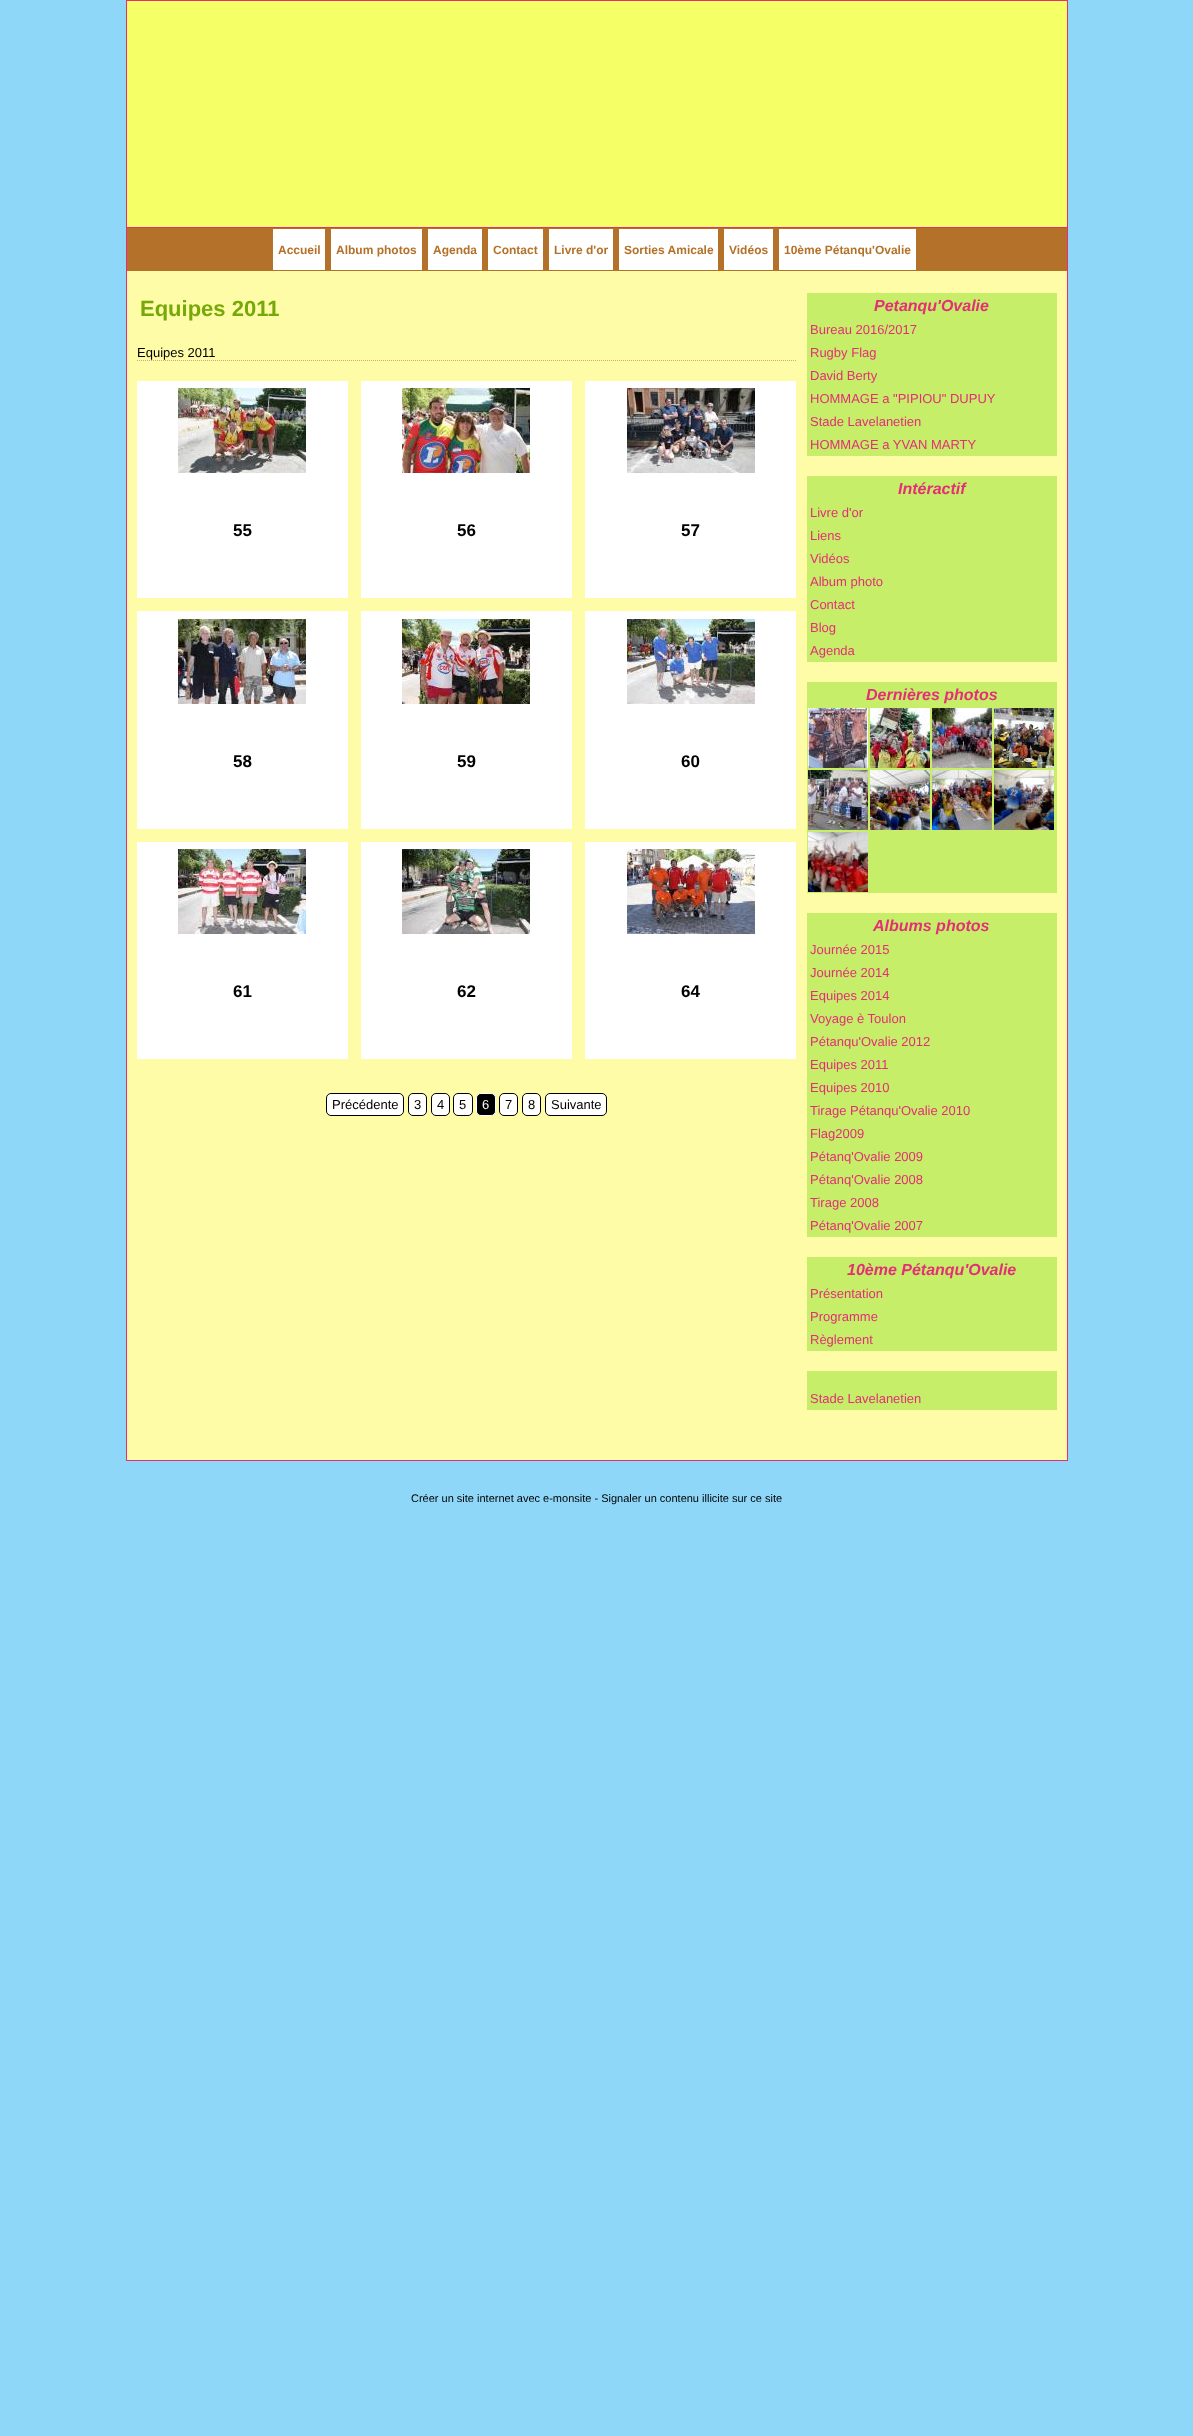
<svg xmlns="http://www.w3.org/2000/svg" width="1193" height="2436">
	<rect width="100%" height="100%" fill="#8ED7F8" />
	<rect x="126.5" y="0.5" width="941" height="227" fill="#F5FF66" stroke="#E42F76" />
	<rect x="127" y="271" width="940" height="1189" fill="#FFFCA8" />
	<rect x="1067" y="228" width="1" height="1233" fill="#E42F76" />
	<rect x="126" y="1460" width="942" height="1" fill="#E42F76" />
	<rect x="126" y="228" width="1" height="1233" fill="#E42F76" />
	<rect x="127" y="228" width="940" height="43" fill="#B47129" />
	<rect x="273" y="229" width="52" height="41" fill="#FFFFFF" />
	<text x="278" y="254" font-family="Liberation Sans" font-size="12" font-weight="700" fill="#B47129">Accueil</text>
	<rect x="331" y="229" width="91" height="41" fill="#FFFFFF" />
	<text x="336" y="254" font-family="Liberation Sans" font-size="12" font-weight="700" fill="#B47129">Album photos</text>
	<rect x="428" y="229" width="54" height="41" fill="#FFFFFF" />
	<text x="433" y="254" font-family="Liberation Sans" font-size="12" font-weight="700" fill="#B47129">Agenda</text>
	<rect x="488" y="229" width="55" height="41" fill="#FFFFFF" />
	<text x="493" y="254" font-family="Liberation Sans" font-size="12" font-weight="700" fill="#B47129">Contact</text>
	<rect x="549" y="229" width="64" height="41" fill="#FFFFFF" />
	<text x="554" y="254" font-family="Liberation Sans" font-size="12" font-weight="700" fill="#B47129">Livre d'or</text>
	<rect x="619" y="229" width="99" height="41" fill="#FFFFFF" />
	<text x="624" y="254" font-family="Liberation Sans" font-size="12" font-weight="700" fill="#B47129">Sorties Amicale</text>
	<rect x="724" y="229" width="49" height="41" fill="#FFFFFF" />
	<text x="729" y="254" font-family="Liberation Sans" font-size="12" font-weight="700" fill="#B47129">Vidéos</text>
	<rect x="779" y="229" width="137" height="41" fill="#FFFFFF" />
	<text x="784" y="254" font-family="Liberation Sans" font-size="12" font-weight="700" fill="#B47129">10ème Pétanqu'Ovalie</text>
	<text x="140" y="316" font-family="Liberation Sans" font-size="22" font-weight="700" fill="#75A808">Equipes 2011</text>
	<path d="M137 360.5H797" fill="none" stroke="#D0AB76" stroke-dasharray="1 1" />
	<text x="137" y="357" font-family="Liberation Sans" font-size="13" fill="#000000">Equipes 2011</text>
	<rect x="137" y="381" width="211" height="217" fill="#FFFFFF" />
	<image x="178" y="388" width="128" height="85" href="assets/img1.png" />
	<text x="233" y="536" font-family="Liberation Sans" font-size="17" font-weight="700" fill="#000000">55</text>
	<rect x="361" y="381" width="211" height="217" fill="#FFFFFF" />
	<image x="402" y="388" width="128" height="85" href="assets/img2.png" />
	<text x="457" y="536" font-family="Liberation Sans" font-size="17" font-weight="700" fill="#000000">56</text>
	<rect x="585" y="381" width="211" height="217" fill="#FFFFFF" />
	<image x="627" y="388" width="128" height="85" href="assets/img3.png" />
	<text x="681" y="536" font-family="Liberation Sans" font-size="17" font-weight="700" fill="#000000">57</text>
	<rect x="137" y="611" width="211" height="218" fill="#FFFFFF" />
	<image x="178" y="619" width="128" height="85" href="assets/img4.png" />
	<text x="233" y="767" font-family="Liberation Sans" font-size="17" font-weight="700" fill="#000000">58</text>
	<rect x="361" y="611" width="211" height="218" fill="#FFFFFF" />
	<image x="402" y="619" width="128" height="85" href="assets/img5.png" />
	<text x="457" y="767" font-family="Liberation Sans" font-size="17" font-weight="700" fill="#000000">59</text>
	<rect x="585" y="611" width="211" height="218" fill="#FFFFFF" />
	<image x="627" y="619" width="128" height="85" href="assets/img6.png" />
	<text x="681" y="767" font-family="Liberation Sans" font-size="17" font-weight="700" fill="#000000">60</text>
	<rect x="137" y="842" width="211" height="217" fill="#FFFFFF" />
	<image x="178" y="849" width="128" height="85" href="assets/img7.png" />
	<text x="233" y="997" font-family="Liberation Sans" font-size="17" font-weight="700" fill="#000000">61</text>
	<rect x="361" y="842" width="211" height="217" fill="#FFFFFF" />
	<image x="402" y="849" width="128" height="85" href="assets/img8.png" />
	<text x="457" y="997" font-family="Liberation Sans" font-size="17" font-weight="700" fill="#000000">62</text>
	<rect x="585" y="842" width="211" height="217" fill="#FFFFFF" />
	<image x="627" y="849" width="128" height="85" href="assets/img9.png" />
	<text x="681" y="997" font-family="Liberation Sans" font-size="17" font-weight="700" fill="#000000">64</text>
	<rect x="326.5" y="1093.5" width="77" height="22" rx="4.5" fill="#FFFFFF" stroke="#000000" />
	<text x="332" y="1109" font-family="Liberation Sans" font-size="13" fill="#000000">Précédente</text>
	<rect x="408.5" y="1093.5" width="18" height="22" rx="4.5" fill="#FFFFFF" stroke="#000000" />
	<text x="414" y="1109" font-family="Liberation Sans" font-size="13" fill="#000000">3</text>
	<rect x="431.5" y="1093.5" width="18" height="22" rx="4.5" fill="#FFFFFF" stroke="#000000" />
	<text x="437" y="1109" font-family="Liberation Sans" font-size="13" fill="#000000">4</text>
	<rect x="453.5" y="1093.5" width="19" height="22" rx="4.5" fill="#FFFFFF" stroke="#000000" />
	<text x="459" y="1109" font-family="Liberation Sans" font-size="13" fill="#000000">5</text>
	<rect x="476.5" y="1093.5" width="19" height="22" rx="4.5" fill="#000000" stroke="#FFFFFF" />
	<text x="482" y="1109" font-family="Liberation Sans" font-size="13" fill="#FFFFFF">6</text>
	<rect x="499.5" y="1093.5" width="18" height="22" rx="4.5" fill="#FFFFFF" stroke="#000000" />
	<text x="505" y="1109" font-family="Liberation Sans" font-size="13" fill="#000000">7</text>
	<rect x="522.5" y="1093.5" width="18" height="22" rx="4.5" fill="#FFFFFF" stroke="#000000" />
	<text x="528" y="1109" font-family="Liberation Sans" font-size="13" fill="#000000">8</text>
	<rect x="545.5" y="1093.5" width="61" height="22" rx="4.5" fill="#FFFFFF" stroke="#000000" />
	<text x="551" y="1109" font-family="Liberation Sans" font-size="13" fill="#000000">Suivante</text>
	<rect x="807" y="293" width="250" height="163" fill="#C6EE69" />
	<text x="874" y="311" font-family="Liberation Sans" font-size="16" font-weight="700" font-style="italic" fill="#E42F76">Petanqu'Ovalie</text>
	<g font-family="Liberation Sans" font-size="13" fill="#E42F76">
		<text x="810" y="334">Bureau 2016/2017</text>
		<text x="810" y="357">Rugby Flag</text>
		<text x="810" y="380">David Berty</text>
		<text x="810" y="403">HOMMAGE a "PIPIOU" DUPUY</text>
		<text x="810" y="426">Stade Lavelanetien</text>
		<text x="810" y="449">HOMMAGE a YVAN MARTY</text>
	</g>
	<rect x="807" y="476" width="250" height="186" fill="#C6EE69" />
	<text x="898" y="494" font-family="Liberation Sans" font-size="16" font-weight="700" font-style="italic" fill="#E42F76">Intéractif</text>
	<g font-family="Liberation Sans" font-size="13" fill="#E42F76">
		<text x="810" y="517">Livre d'or</text>
		<text x="810" y="540">Liens</text>
		<text x="810" y="563">Vidéos</text>
		<text x="810" y="586">Album photo</text>
		<text x="810" y="609">Contact</text>
		<text x="810" y="632">Blog</text>
		<text x="810" y="655">Agenda</text>
	</g>
	<rect x="807" y="682" width="250" height="211" fill="#C6EE69" />
	<text x="866" y="700" font-family="Liberation Sans" font-size="16" font-weight="700" font-style="italic" fill="#E42F76">Dernières photos</text>
	<image x="808" y="708" width="60" height="60" href="assets/img10.png" />
	<image x="870" y="708" width="60" height="60" href="assets/img11.png" />
	<image x="932" y="708" width="60" height="60" href="assets/img12.png" />
	<image x="994" y="708" width="60" height="60" href="assets/img13.png" />
	<image x="808" y="770" width="60" height="60" href="assets/img14.png" />
	<image x="870" y="770" width="60" height="60" href="assets/img15.png" />
	<image x="932" y="770" width="60" height="60" href="assets/img16.png" />
	<image x="994" y="770" width="60" height="60" href="assets/img17.png" />
	<image x="808" y="832" width="60" height="60" href="assets/img18.png" />
	<rect x="807" y="913" width="250" height="324" fill="#C6EE69" />
	<text x="873" y="931" font-family="Liberation Sans" font-size="16" font-weight="700" font-style="italic" fill="#E42F76">Albums photos</text>
	<g font-family="Liberation Sans" font-size="13" fill="#E42F76">
		<text x="810" y="954">Journée 2015</text>
		<text x="810" y="977">Journée 2014</text>
		<text x="810" y="1000">Equipes 2014</text>
		<text x="810" y="1023">Voyage è Toulon</text>
		<text x="810" y="1046">Pétanqu'Ovalie 2012</text>
		<text x="810" y="1069">Equipes 2011</text>
		<text x="810" y="1092">Equipes 2010</text>
		<text x="810" y="1115">Tirage Pétanqu'Ovalie 2010</text>
		<text x="810" y="1138">Flag2009</text>
		<text x="810" y="1161">Pétanq'Ovalie 2009</text>
		<text x="810" y="1184">Pétanq'Ovalie 2008</text>
		<text x="810" y="1207">Tirage 2008</text>
		<text x="810" y="1230">Pétanq'Ovalie 2007</text>
	</g>
	<rect x="807" y="1257" width="250" height="94" fill="#C6EE69" />
	<text x="847" y="1275" font-family="Liberation Sans" font-size="16" font-weight="700" font-style="italic" fill="#E42F76">10ème Pétanqu'Ovalie</text>
	<g font-family="Liberation Sans" font-size="13" fill="#E42F76">
		<text x="810" y="1298">Présentation</text>
		<text x="810" y="1321">Programme</text>
		<text x="810" y="1344">Règlement</text>
	</g>
	<rect x="807" y="1371" width="250" height="39" fill="#C6EE69" />
	<text x="810" y="1403" font-family="Liberation Sans" font-size="13" fill="#E42F76">Stade Lavelanetien</text>
	<text x="411" y="1502" font-family="Liberation Sans" font-size="11" fill="#000000">Créer un site internet avec e-monsite - Signaler un contenu illicite sur ce site</text>
</svg>
